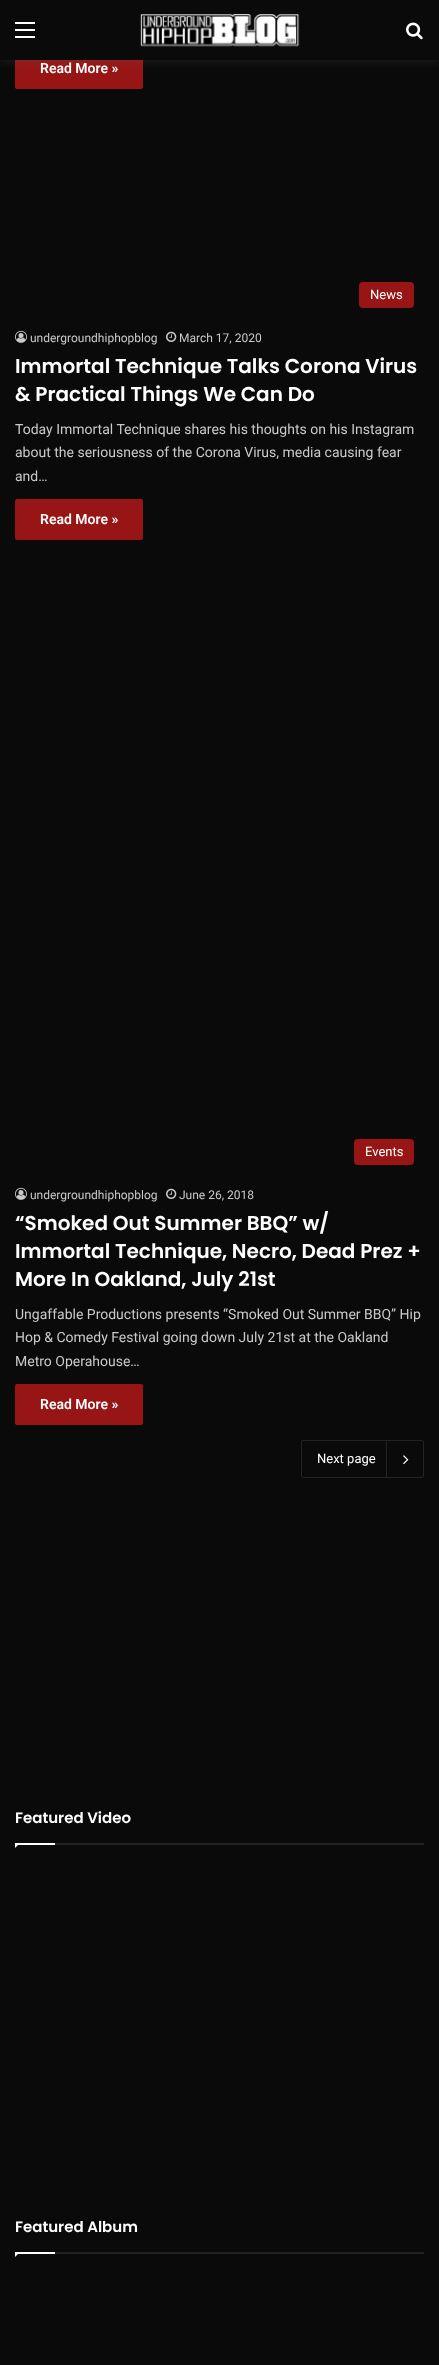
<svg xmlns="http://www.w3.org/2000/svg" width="439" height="2365">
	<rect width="100%" height="100%" fill="#0A0A0A" />
	<rect x="15" y="48" width="128" height="41" rx="2" fill="#981515" />
	<rect x="0" y="2" width="439" height="60" fill="#636363" fill-opacity="0.2" filter="blur(4px)" />
	<rect x="0" y="0" width="439" height="60" fill="#0A0A0A" />
	<rect x="15" y="29" width="20" height="2" fill="#FFFFFF" />
	<rect x="15" y="22" width="20" height="2" fill="#FFFFFF" />
	<rect x="15" y="36" width="20" height="2" fill="#FFFFFF" />
	<image x="140" y="14" width="160" height="33" href="assets/img1.png" />
	<image x="406" y="22" width="17" height="18" href="assets/img2.png" />
	<text x="40" y="73" font-family="Roboto" font-size="14" font-weight="600" fill="#FFFFFF">Read More »</text>
	<rect x="359" y="282" width="55" height="26" rx="4" fill="#981515" />
	<text x="370" y="299" font-family="Roboto" font-size="13" fill="#FFFFFF">News</text>
	<image x="15" y="330" width="12" height="13" href="assets/img3.png" />
	<text x="30" y="342" font-family="Roboto" font-size="12" fill="#CACACA">undergroundhiphopblog</text>
	<image x="166" y="331" width="11" height="11" href="assets/img4.png" />
	<text x="179" y="342" font-family="Roboto" font-size="12" fill="#CACACA">March 17, 2020</text>
	<g font-family="Poppins" font-size="20" font-weight="600" fill="#FFFFFF">
		<text x="15" y="373">Immortal Technique Talks Corona Virus</text>
		<text x="15" y="401">&amp; Practical Things We Can Do</text>
	</g>
	<g font-family="Roboto" font-size="14" fill="#CACACA">
		<text x="15" y="434">Today Immortal Technique shares his thoughts on his Instagram</text>
		<text x="15" y="457">about the seriousness of the Corona Virus, media causing fear</text>
		<text x="15" y="481">and…</text>
	</g>
	<rect x="15" y="499" width="128" height="41" rx="2" fill="#981515" />
	<text x="40" y="524" font-family="Roboto" font-size="14" font-weight="600" fill="#FFFFFF">Read More »</text>
	<rect x="354" y="1139" width="60" height="26" rx="4" fill="#981515" />
	<text x="365" y="1156" font-family="Roboto" font-size="13" fill="#FFFFFF">Events</text>
	<image x="15" y="1187" width="12" height="13" href="assets/img3.png" />
	<text x="30" y="1199" font-family="Roboto" font-size="12" fill="#CACACA">undergroundhiphopblog</text>
	<image x="166" y="1188" width="11" height="11" href="assets/img4.png" />
	<text x="179" y="1199" font-family="Roboto" font-size="12" fill="#CACACA">June 26, 2018</text>
	<g font-family="Poppins" font-size="20" font-weight="600" fill="#FFFFFF">
		<text x="15" y="1230">“Smoked Out Summer BBQ” w/</text>
		<text x="15" y="1258">Immortal Technique, Necro, Dead Prez +</text>
		<text x="15" y="1286">More In Oakland, July 21st</text>
	</g>
	<g font-family="Roboto" font-size="14" fill="#CACACA">
		<text x="15" y="1319">Ungaffable Productions presents “Smoked Out Summer BBQ” Hip</text>
		<text x="15" y="1342">Hop &amp; Comedy Festival going down July 21st at the Oakland</text>
		<text x="15" y="1366">Metro Operahouse…</text>
	</g>
	<rect x="15" y="1384" width="128" height="41" rx="2" fill="#981515" />
	<text x="40" y="1409" font-family="Roboto" font-size="14" font-weight="600" fill="#FFFFFF">Read More »</text>
	<rect x="301.5" y="1440.5" width="122" height="37" rx="1.5" fill="none" stroke="#232323" />
	<text x="317" y="1463" font-family="Roboto" font-size="13" fill="#FFFFFF">Next page</text>
	<rect x="386" y="1441" width="1" height="36" fill="#232323" />
	<image x="403" y="1455" width="6" height="10" href="assets/img5.png" />
	<rect x="55" y="1843" width="369" height="2" fill="#222222" />
	<text x="15" y="1823" font-family="Poppins" font-size="15" font-weight="600" fill="#FFFFFF">Featured Video</text>
	<path d="M15 1843H20L15 1848Z" fill="#FDFDFD" />
	<rect x="15" y="1843" width="40" height="2" fill="#FDFDFD" />
	<rect x="55" y="2252" width="369" height="2" fill="#222222" />
	<text x="15" y="2232" font-family="Poppins" font-size="15" font-weight="600" fill="#FFFFFF">Featured Album</text>
	<path d="M15 2252H20L15 2257Z" fill="#FDFDFD" />
	<rect x="15" y="2252" width="40" height="2" fill="#FDFDFD" />
</svg>
